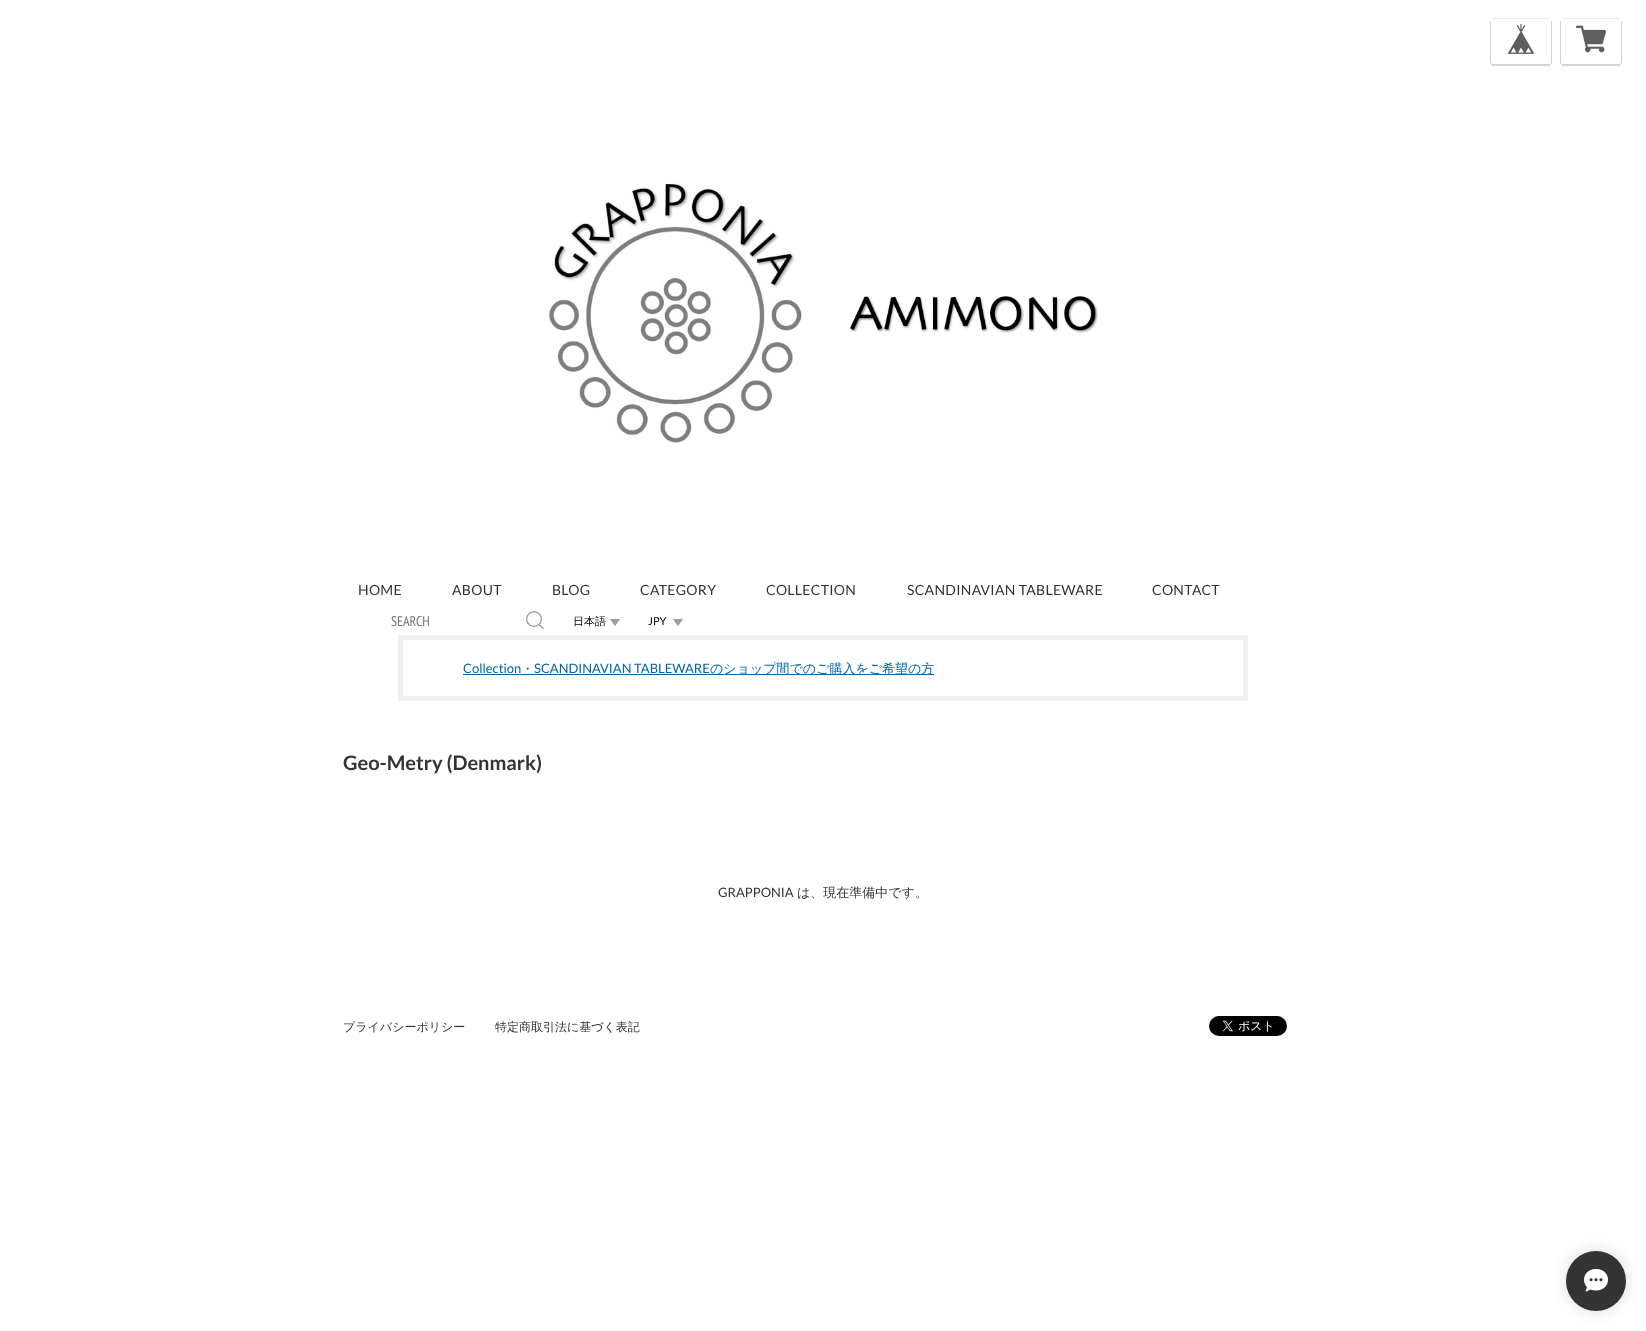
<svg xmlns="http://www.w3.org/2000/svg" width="1646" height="1331">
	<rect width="100%" height="100%" fill="#FFFFFF" />
	<path d="M1494 18C1492 18 1491 20 1491 22C1491 20 1492 19 1494 19H1548C1550 19 1551 20 1551 22C1551 20 1550 18 1548 18Z" fill="#EAEAEA" />
	<path d="M1494 19C1492 19 1490 21 1490 23V62C1490 64 1492 66 1494 66H1548C1550 66 1552 64 1552 62V23C1552 21 1550 19 1548 19C1550 19 1551 20 1551 22V61C1551 63 1550 64 1548 64H1494C1492 64 1491 63 1491 61V22C1491 20 1492 19 1494 19Z" fill="#D5D5D5" />
	<rect x="1491" y="19" width="60" height="45" rx="3" fill="#FFFFFF" />
	<image x="1507" y="24" width="28" height="30" href="assets/img1.png" />
	<path d="M1564 18C1562 18 1561 20 1561 22C1561 20 1562 19 1564 19H1618C1620 19 1621 20 1621 22C1621 20 1620 18 1618 18Z" fill="#EAEAEA" />
	<path d="M1564 19C1562 19 1560 21 1560 23V62C1560 64 1562 66 1564 66H1618C1620 66 1622 64 1622 62V23C1622 21 1620 19 1618 19C1620 19 1621 20 1621 22V61C1621 63 1620 64 1618 64H1564C1562 64 1561 63 1561 61V22C1561 20 1562 19 1564 19Z" fill="#D5D5D5" />
	<rect x="1561" y="19" width="60" height="45" rx="3" fill="#FFFFFF" />
	<image x="1576" y="25" width="30" height="28" href="assets/img2.png" />
	<image x="549" y="181" width="549" height="262" href="assets/img3.png" />
	<g font-family="Lato" font-size="14" letter-spacing="0.3" fill="#333333">
		<text x="358" y="595">HOME</text>
		<text x="452" y="595">ABOUT</text>
		<text x="552" y="595">BLOG</text>
		<text x="640" y="595">CATEGORY</text>
		<text x="766" y="595">COLLECTION</text>
		<text x="907" y="595">SCANDINAVIAN TABLEWARE</text>
		<text x="1152" y="595">CONTACT</text>
	</g>
	<text x="391" y="626" font-family="PT Sans Narrow" font-size="14" fill="#757575">SEARCH</text>
	<image x="526" y="611" width="18" height="18" href="assets/img4.png" />
	<text x="573" y="625" font-family="WenQuanYi Zen Hei" font-size="11" font-weight="500" fill="#000000">日本語</text>
	<image x="610" y="619" width="10" height="7" href="assets/img5.png" />
	<text x="648" y="625" font-family="Lato" font-size="11" fill="#000000">JPY</text>
	<image x="673" y="619" width="10" height="7" href="assets/img5.png" />
	<rect x="400.5" y="637.5" width="845" height="61" fill="none" stroke="#EEEEEE" stroke-width="5" />
	<text x="463" y="673" font-family="Lato" font-size="13" fill="#0064A5">Collection</text>
	<rect x="463" y="674" width="471" height="1" fill="#0064A5" />
	<text x="521" y="673" font-family="WenQuanYi Zen Hei" font-size="13" font-weight="500" fill="#0064A5">・</text>
	<text x="534" y="673" font-family="Lato" font-size="13" fill="#0064A5">SCANDINAVIAN TABLEWARE</text>
	<text x="710" y="673" font-family="WenQuanYi Zen Hei" font-size="13" font-weight="500" fill="#0064A5">のショップ間でのご購入をご希望の方</text>
	<text x="343" y="770" font-family="Lato" font-size="20" font-weight="700" fill="#333333">Geo-Metry (Denmark)</text>
	<text x="718" y="897" font-family="Lato" font-size="13" fill="#333333">GRAPPONIA</text>
	<text x="797" y="897" font-family="WenQuanYi Zen Hei" font-size="13" font-weight="500" fill="#333333">は、現在準備中です。</text>
	<g font-family="WenQuanYi Zen Hei" font-size="12" font-weight="500" fill="#333333">
		<text x="343" y="1031">プライバシーポリシー</text>
		<text x="495" y="1031">特定商取引法に基づく表記</text>
	</g>
	<image x="1209" y="1016" width="78" height="20" href="assets/img6.png" />
	<rect x="1566" y="1251" width="60" height="60" rx="30" fill="#334258" fill-opacity="0.2" filter="blur(7.5px)" />
	<circle cx="1596" cy="1281" r="30" fill="#333333" />
	<image x="1584" y="1268" width="24" height="24" href="assets/img7.png" />
</svg>
